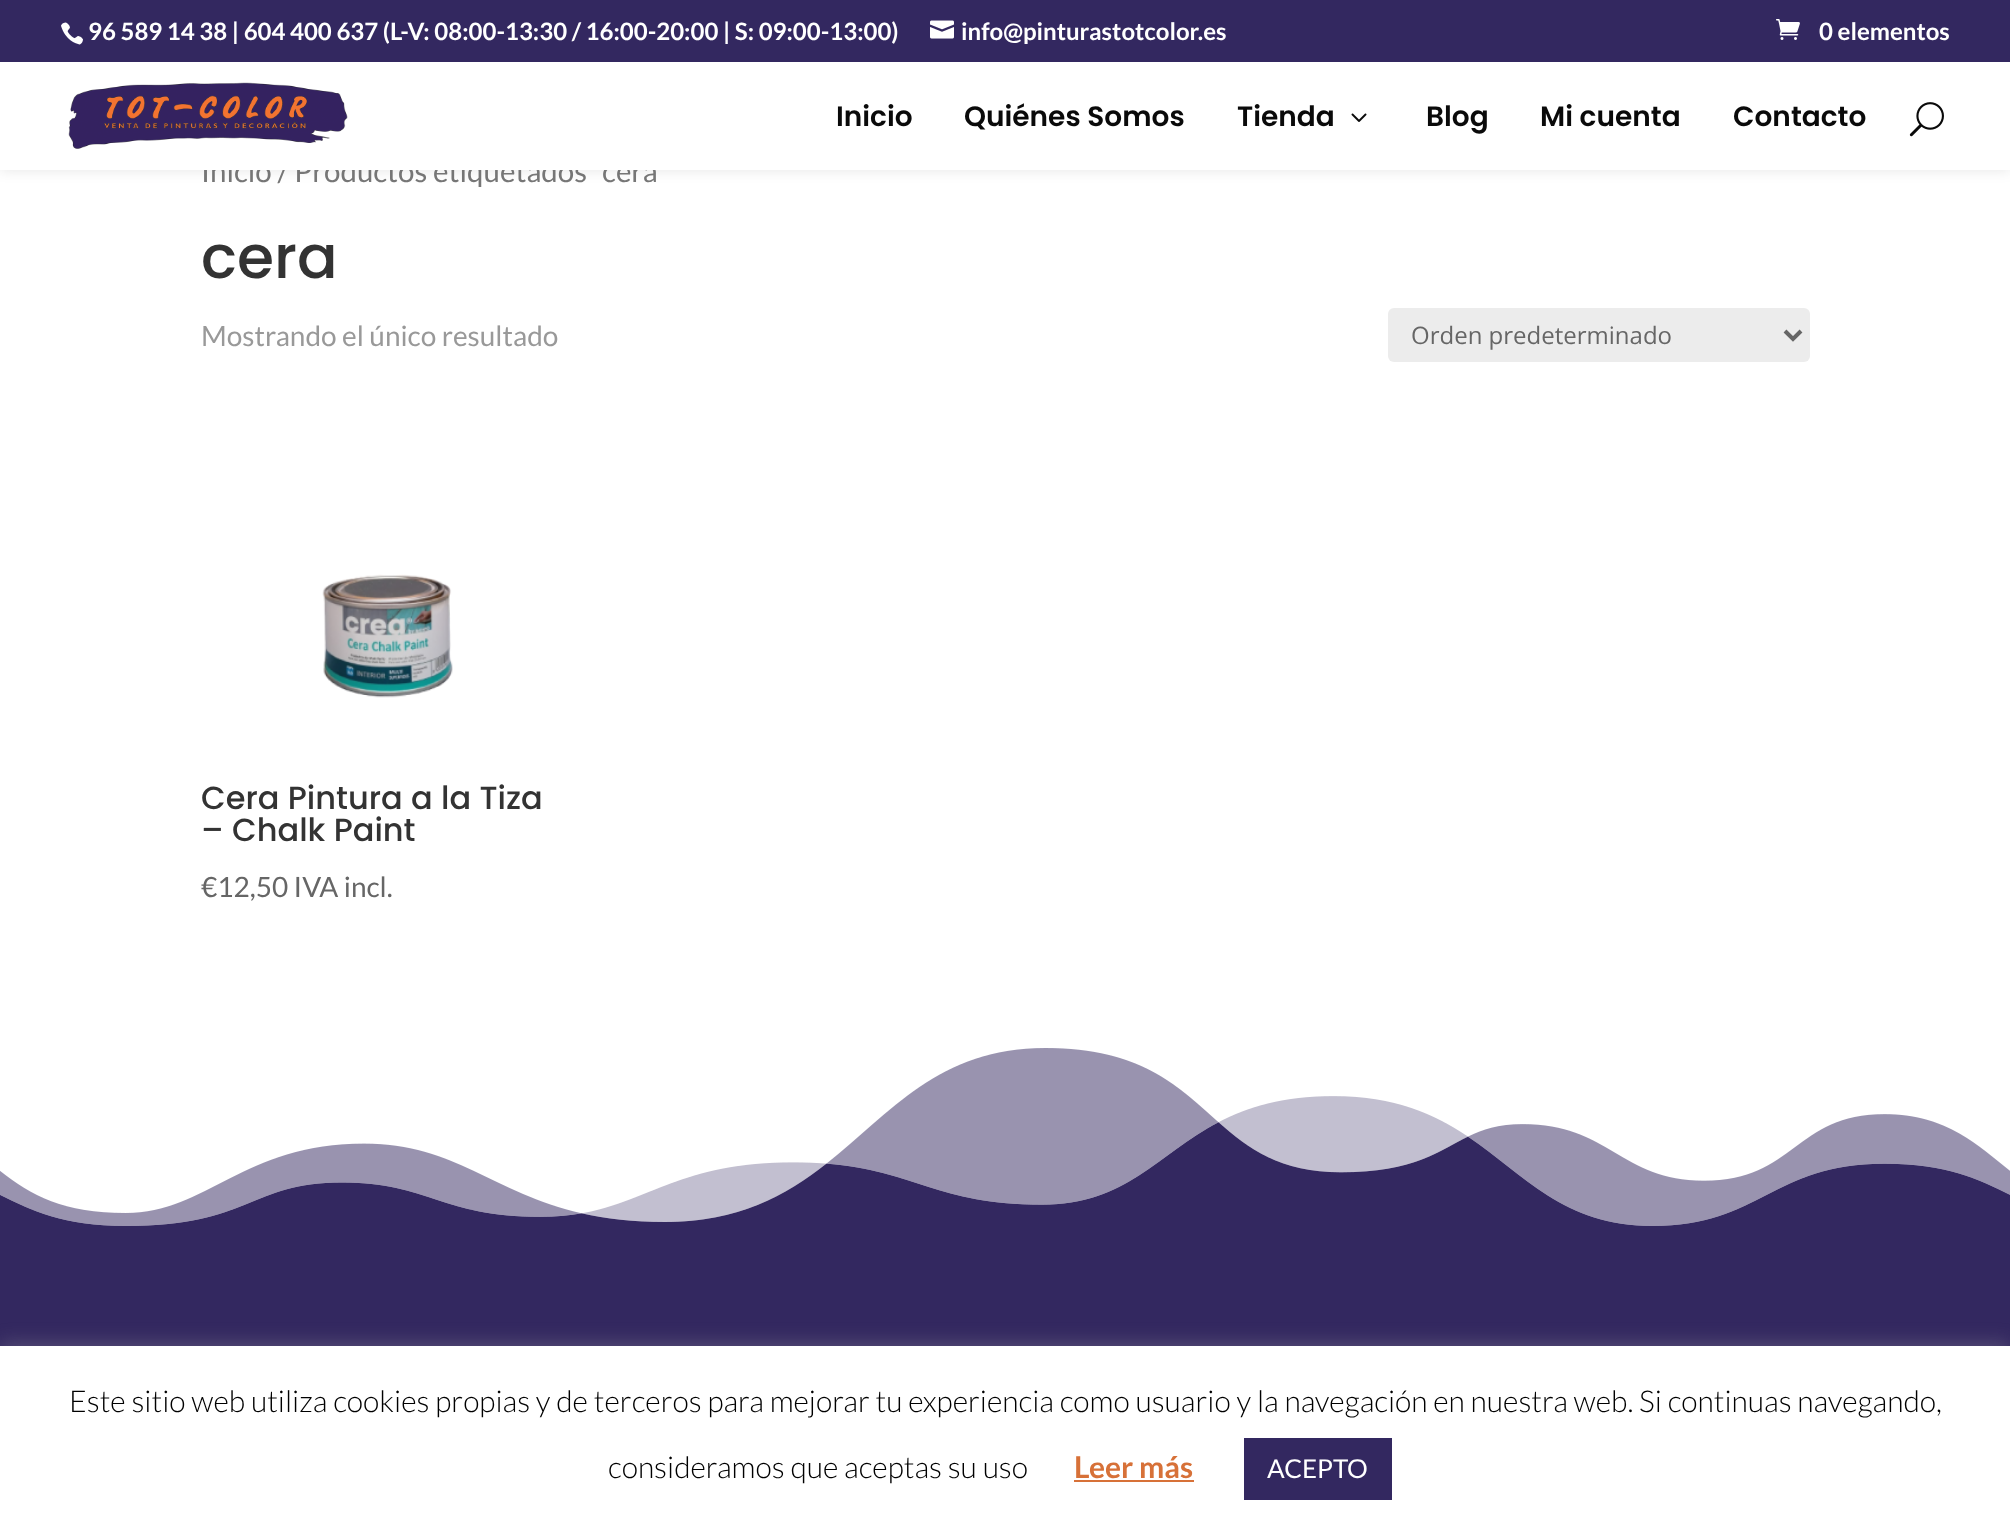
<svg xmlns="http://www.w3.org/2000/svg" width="2010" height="1533">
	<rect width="100%" height="100%" fill="#FFFFFF" />
	<rect x="0" y="62" width="2010" height="108" fill="#000000" fill-opacity="0.1" filter="blur(7px)" />
	<rect x="0" y="0" width="2010" height="62" fill="#332860" />
	<image x="61" y="22" width="22" height="23" href="assets/img1.png" />
	<text x="88" y="40" font-family="Lato" font-size="24" font-weight="700" fill="#FFFFFF">96 589 14 38 | 604 400 637 (L-V: 08:00-13:30 / 16:00-20:00 | S: 09:00-13:00)</text>
	<image x="930" y="20" width="24" height="19" href="assets/img2.png" />
	<text x="961" y="40" font-family="Lato" font-size="24" font-weight="700" fill="#FFFFFF">info@pinturastotcolor.es</text>
	<image x="1776" y="19" width="24" height="21" href="assets/img3.png" />
	<text x="1819" y="40" font-family="Lato" font-size="24" font-weight="700" fill="#FFFFFF">0 elementos</text>
	<text x="201" y="182" font-family="Lato" font-size="29.5" fill="#767676">Inicio / Productos etiquetados “cera</text>
	<rect x="0" y="62" width="2010" height="108" fill="#FFFFFF" />
	<image x="68" y="82" width="280" height="67" href="assets/img4.png" />
	<g font-family="Poppins" font-size="28" font-weight="600" fill="#0A0A0A">
		<text x="836" y="126">Inicio</text>
		<text x="964" y="126">Quiénes Somos</text>
		<text x="1237" y="126">Tienda</text>
	</g>
	<image x="1351" y="113" width="16" height="9" href="assets/img5.png" />
	<g font-family="Poppins" font-size="28" font-weight="600" fill="#0A0A0A">
		<text x="1426" y="126">Blog</text>
		<text x="1540" y="126">Mi cuenta</text>
		<text x="1733" y="126">Contacto</text>
	</g>
	<image x="1909" y="102" width="35" height="35" href="assets/img6.png" />
	<text x="201" y="278" font-family="Poppins" font-size="60" font-weight="500" fill="#333333">cera</text>
	<text x="201" y="346" font-family="Lato" font-size="28" fill="#999999">Mostrando el único resultado</text>
	<rect x="1388" y="308" width="422" height="54" rx="6" fill="#ECECEC" />
	<path d="M1785 331L1793 339L1801 331" fill="none" stroke="#666666" stroke-width="4" />
	<text x="1411" y="344" font-family="Open Sans" font-size="24" fill="#666666">Orden predeterminado</text>
	<image x="322" y="574" width="131" height="124" href="assets/img7.png" />
	<g font-family="Poppins" font-size="32" font-weight="500" fill="#333333">
		<text x="201" y="809">Cera Pintura a la Tiza</text>
		<text x="201" y="841">– Chalk Paint</text>
	</g>
	<text x="201" y="897" font-family="Lato" font-size="28" fill="#666666">€12,50 IVA incl.</text>
	<image x="0" y="1048" width="2010" height="200" href="assets/img8.png" />
	<rect x="0" y="1248" width="2010" height="98" fill="#332860" />
	<rect x="0" y="1344" width="2010" height="188" fill="#ACABAB" fill-opacity="0.3" filter="blur(10px)" />
	<rect x="0" y="1346" width="2010" height="187" fill="#FFFFFF" />
	<g font-family="Lato" font-size="30" font-weight="300" fill="#000000">
		<text x="69" y="1412">Este sitio web utiliza cookies propias y de terceros para mejorar tu experiencia como usuario y la navegación en nuestra web. Si continuas navegando,</text>
		<text x="608" y="1478">consideramos que aceptas su uso</text>
	</g>
	<text x="1074" y="1478" font-family="Lato" font-size="30" font-weight="700" fill="#D77138">Leer más</text>
	<rect x="1074" y="1480" width="120" height="2" fill="#D77138" />
	<rect x="1244" y="1438" width="148" height="62" fill="#332860" />
	<text x="1267" y="1478" font-family="Lato" font-size="26" fill="#FFFFFF">ACEPTO</text>
</svg>
